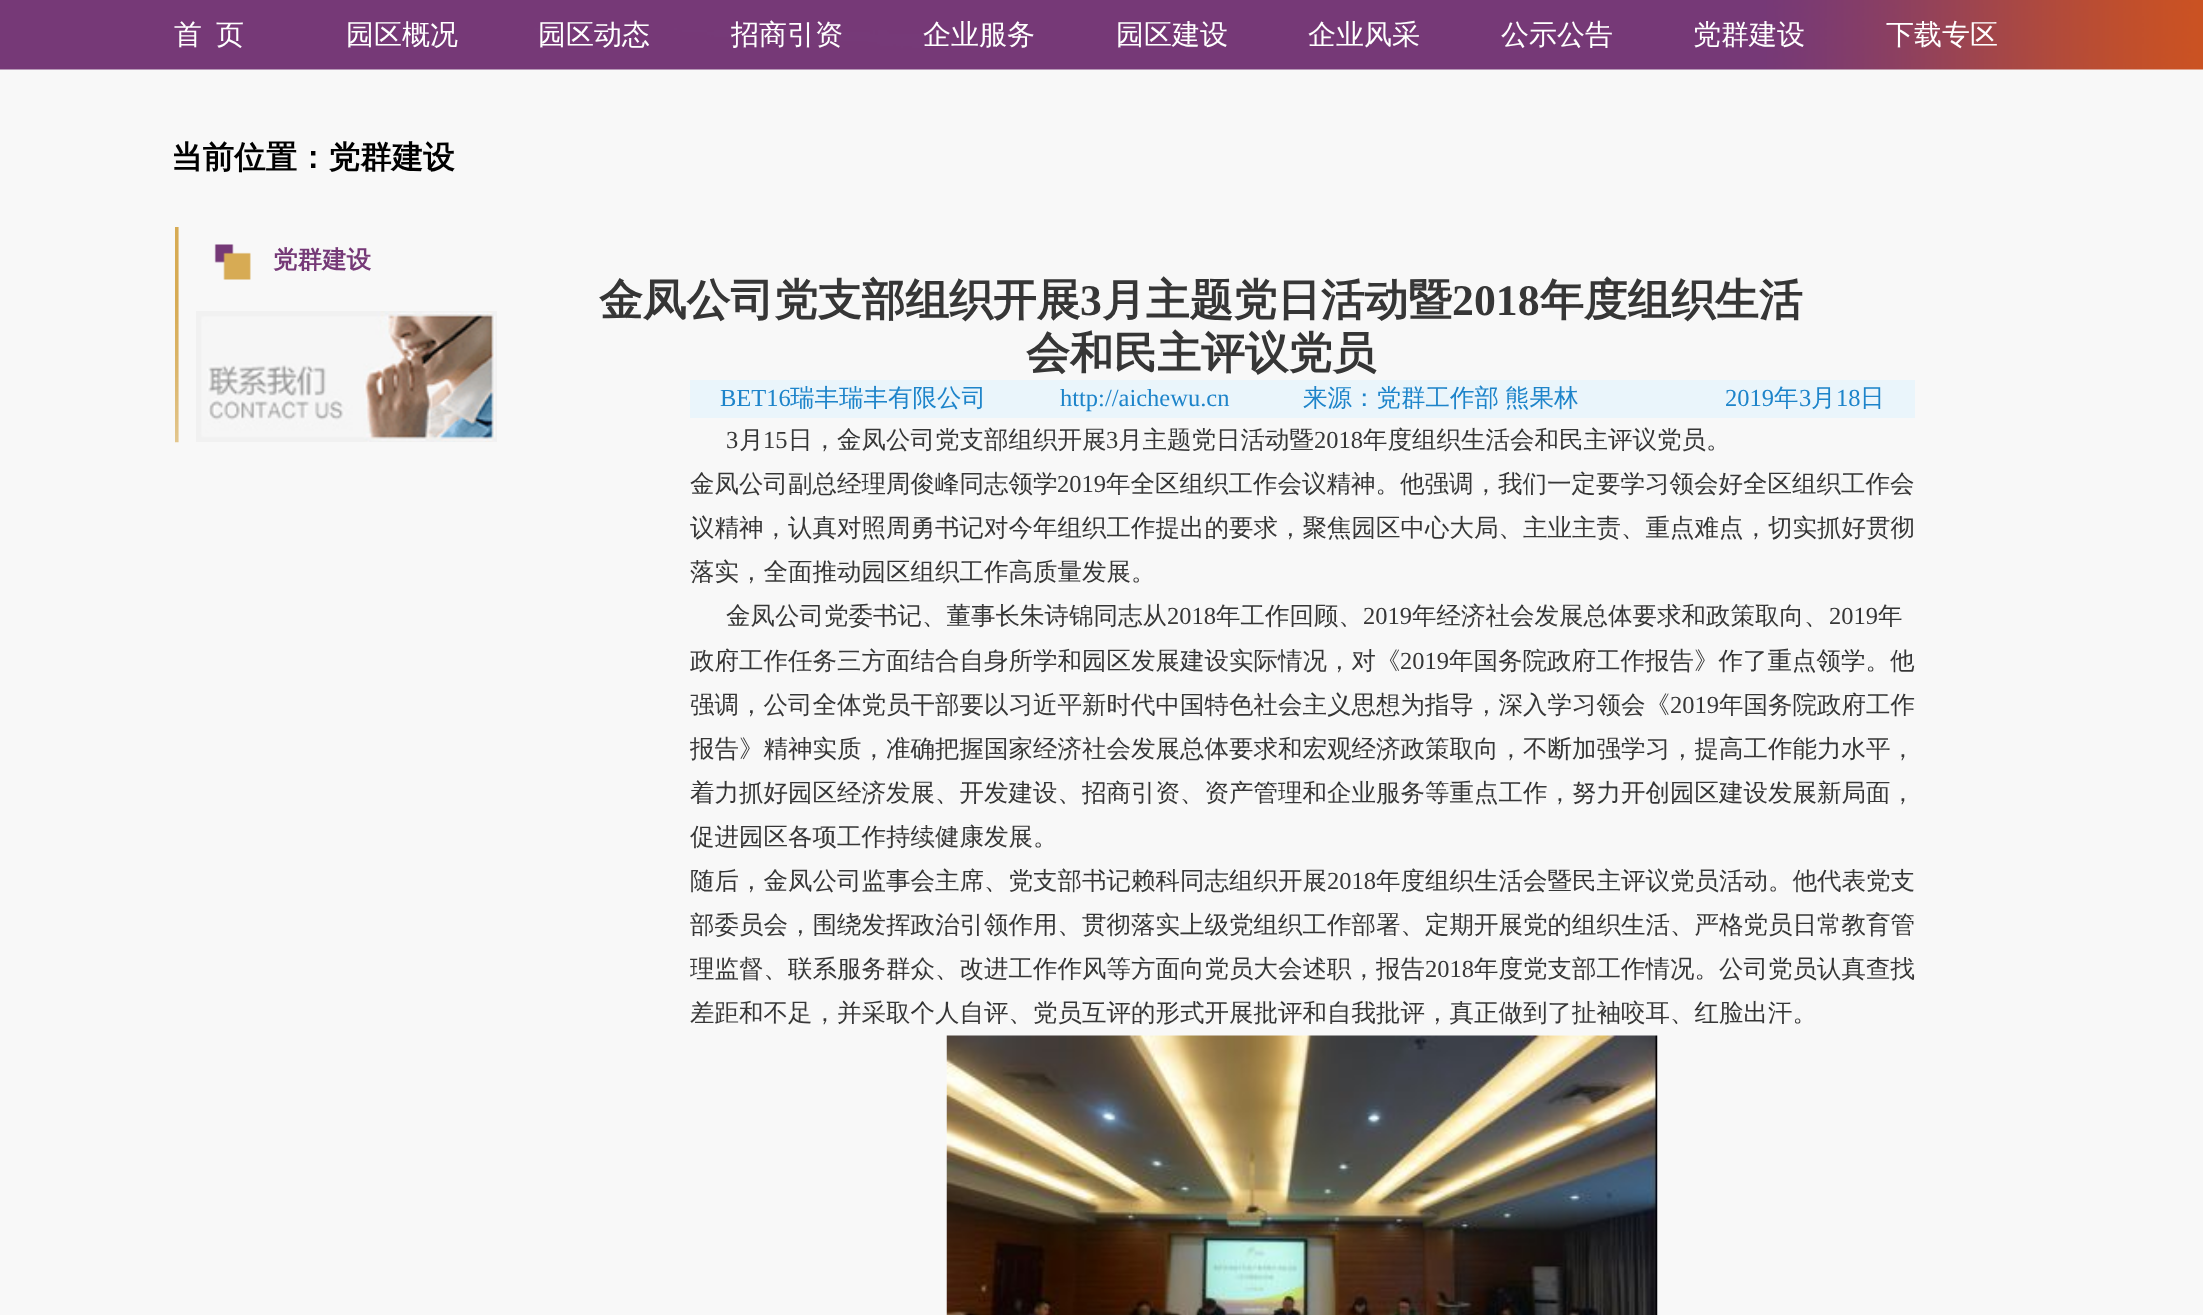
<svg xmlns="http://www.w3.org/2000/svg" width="2203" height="1315">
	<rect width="100%" height="100%" fill="#F8F8F8" />
	<image x="0" y="0" width="2203" height="70" href="assets/img1.png" />
	<g font-family="WenQuanYi Zen Hei" font-size="28" font-weight="500" fill="#FFFFFF">
		<text x="174" y="44">首</text>
		<text x="216" y="44">页</text>
		<text x="346" y="44">园区概况</text>
		<text x="538" y="44">园区动态</text>
		<text x="731" y="44">招商引资</text>
		<text x="923" y="44">企业服务</text>
		<text x="1116" y="44">园区建设</text>
		<text x="1308" y="44">企业风采</text>
		<text x="1501" y="44">公示公告</text>
		<text x="1693" y="44">党群建设</text>
		<text x="1886" y="44">下载专区</text>
	</g>
	<text x="171" y="168" font-family="WenQuanYi Zen Hei" font-size="31.5" font-weight="700" fill="#000000">当前位置：党群建设</text>
	<image x="175" y="227" width="76" height="216" href="assets/img2.png" />
	<text x="273" y="268" font-family="WenQuanYi Zen Hei" font-size="24.5" font-weight="700" fill="#753977">党群建设</text>
	<image x="196" y="311" width="301" height="131" href="assets/img3.png" />
	<text x="599" y="315" font-family="WenQuanYi Zen Hei" font-size="43.75" font-weight="700" fill="#363636">金凤公司党支部组织开展</text>
	<text x="1080" y="315" font-family="Liberation Serif" font-size="43.75" font-weight="700" fill="#363636">3</text>
	<text x="1102" y="315" font-family="WenQuanYi Zen Hei" font-size="43.75" font-weight="700" fill="#363636">月主题党日活动暨</text>
	<text x="1452" y="315" font-family="Liberation Serif" font-size="43.75" font-weight="700" fill="#363636">2018</text>
	<g font-family="WenQuanYi Zen Hei" font-size="43.75" font-weight="700" fill="#363636">
		<text x="1540" y="315">年度组织生活</text>
		<text x="1026" y="368">会和民主评议党员</text>
	</g>
	<rect x="690" y="380" width="1225" height="38" fill="#EAF5FB" />
	<text x="720" y="406" font-family="Liberation Serif" font-size="24.5" fill="#1D84CA">BET16</text>
	<text x="790" y="406" font-family="WenQuanYi Zen Hei" font-size="24.5" font-weight="500" fill="#1D84CA">瑞丰瑞丰有限公司</text>
	<text x="1060" y="406" font-family="Liberation Serif" font-size="24.5" fill="#1D84CA">http://aichewu.cn</text>
	<g font-family="WenQuanYi Zen Hei" font-size="24.5" font-weight="500" fill="#1D84CA">
		<text x="1303" y="406">来源：党群工作部</text>
		<text x="1505" y="406">熊果林</text>
	</g>
	<text x="1725" y="406" font-family="Liberation Serif" font-size="24.5" fill="#1D84CA">2019</text>
	<text x="1774" y="406" font-family="WenQuanYi Zen Hei" font-size="24.5" font-weight="500" fill="#1D84CA">年</text>
	<text x="1799" y="406" font-family="Liberation Serif" font-size="24.5" fill="#1D84CA">3</text>
	<text x="1811" y="406" font-family="WenQuanYi Zen Hei" font-size="24.5" font-weight="500" fill="#1D84CA">月</text>
	<text x="1836" y="406" font-family="Liberation Serif" font-size="24.5" fill="#1D84CA">18</text>
	<text x="1860" y="406" font-family="WenQuanYi Zen Hei" font-size="24.5" font-weight="500" fill="#1D84CA">日</text>
	<text x="726" y="448" font-family="Liberation Serif" font-size="24.5" fill="#363636">3</text>
	<text x="739" y="448" font-family="WenQuanYi Zen Hei" font-size="24.5" font-weight="500" fill="#363636">月</text>
	<text x="763" y="448" font-family="Liberation Serif" font-size="24.5" fill="#363636">15</text>
	<text x="788" y="448" font-family="WenQuanYi Zen Hei" font-size="24.5" font-weight="500" fill="#363636">日，金凤公司党支部组织开展</text>
	<text x="1106" y="448" font-family="Liberation Serif" font-size="24.5" fill="#363636">3</text>
	<text x="1118" y="448" font-family="WenQuanYi Zen Hei" font-size="24.5" font-weight="500" fill="#363636">月主题党日活动暨</text>
	<text x="1314" y="448" font-family="Liberation Serif" font-size="24.5" fill="#363636">2018</text>
	<g font-family="WenQuanYi Zen Hei" font-size="24.5" font-weight="500" fill="#363636">
		<text x="1363" y="448">年度组织生活会和民主评议党员。</text>
		<text x="690" y="492">金凤公司副总经理周俊峰同志领学</text>
	</g>
	<text x="1057" y="492" font-family="Liberation Serif" font-size="24.5" fill="#363636">2019</text>
	<g font-family="WenQuanYi Zen Hei" font-size="24.5" font-weight="500" fill="#363636">
		<text x="1106" y="492">年全区组织工作会议精神。他强调，我们一定要学习领会好全区组织工作会</text>
		<text x="690" y="536">议精神，认真对照周勇书记对今年组织工作提出的要求，聚焦园区中心大局、主业主责、重点难点，切实抓好贯彻</text>
		<text x="690" y="580">落实，全面推动园区组织工作高质量发展。</text>
		<text x="726" y="624">金凤公司党委书记、董事长朱诗锦同志从</text>
	</g>
	<text x="1167" y="624" font-family="Liberation Serif" font-size="24.5" fill="#363636">2018</text>
	<text x="1216" y="624" font-family="WenQuanYi Zen Hei" font-size="24.5" font-weight="500" fill="#363636">年工作回顾、</text>
	<text x="1363" y="624" font-family="Liberation Serif" font-size="24.5" fill="#363636">2019</text>
	<text x="1412" y="624" font-family="WenQuanYi Zen Hei" font-size="24.5" font-weight="500" fill="#363636">年经济社会发展总体要求和政策取向、</text>
	<text x="1829" y="624" font-family="Liberation Serif" font-size="24.5" fill="#363636">2019</text>
	<g font-family="WenQuanYi Zen Hei" font-size="24.5" font-weight="500" fill="#363636">
		<text x="1878" y="624">年</text>
		<text x="690" y="669">政府工作任务三方面结合自身所学和园区发展建设实际情况，对《</text>
	</g>
	<text x="1400" y="669" font-family="Liberation Serif" font-size="24.5" fill="#363636">2019</text>
	<g font-family="WenQuanYi Zen Hei" font-size="24.5" font-weight="500" fill="#363636">
		<text x="1449" y="669">年国务院政府工作报告》作了重点领学。他</text>
		<text x="690" y="713">强调，公司全体党员干部要以习近平新时代中国特色社会主义思想为指导，深入学习领会《</text>
	</g>
	<text x="1670" y="713" font-family="Liberation Serif" font-size="24.5" fill="#363636">2019</text>
	<g font-family="WenQuanYi Zen Hei" font-size="24.5" font-weight="500" fill="#363636">
		<text x="1719" y="713">年国务院政府工作</text>
		<text x="690" y="757">报告》精神实质，准确把握国家经济社会发展总体要求和宏观经济政策取向，不断加强学习，提高工作能力水平，</text>
		<text x="690" y="801">着力抓好园区经济发展、开发建设、招商引资、资产管理和企业服务等重点工作，努力开创园区建设发展新局面，</text>
		<text x="690" y="845">促进园区各项工作持续健康发展。</text>
		<text x="690" y="889">随后，金凤公司监事会主席、党支部书记赖科同志组织开展</text>
	</g>
	<text x="1327" y="889" font-family="Liberation Serif" font-size="24.5" fill="#363636">2018</text>
	<g font-family="WenQuanYi Zen Hei" font-size="24.5" font-weight="500" fill="#363636">
		<text x="1376" y="889">年度组织生活会暨民主评议党员活动。他代表党支</text>
		<text x="690" y="933">部委员会，围绕发挥政治引领作用、贯彻落实上级党组织工作部署、定期开展党的组织生活、严格党员日常教育管</text>
		<text x="690" y="977">理监督、联系服务群众、改进工作作风等方面向党员大会述职，报告</text>
	</g>
	<text x="1425" y="977" font-family="Liberation Serif" font-size="24.5" fill="#363636">2018</text>
	<g font-family="WenQuanYi Zen Hei" font-size="24.5" font-weight="500" fill="#363636">
		<text x="1474" y="977">年度党支部工作情况。公司党员认真查找</text>
		<text x="690" y="1021">差距和不足，并采取个人自评、党员互评的形式开展批评和自我批评，真正做到了扯袖咬耳、红脸出汗。</text>
	</g>
	<image x="946" y="1035" width="712" height="280" href="assets/img4.png" />
</svg>
